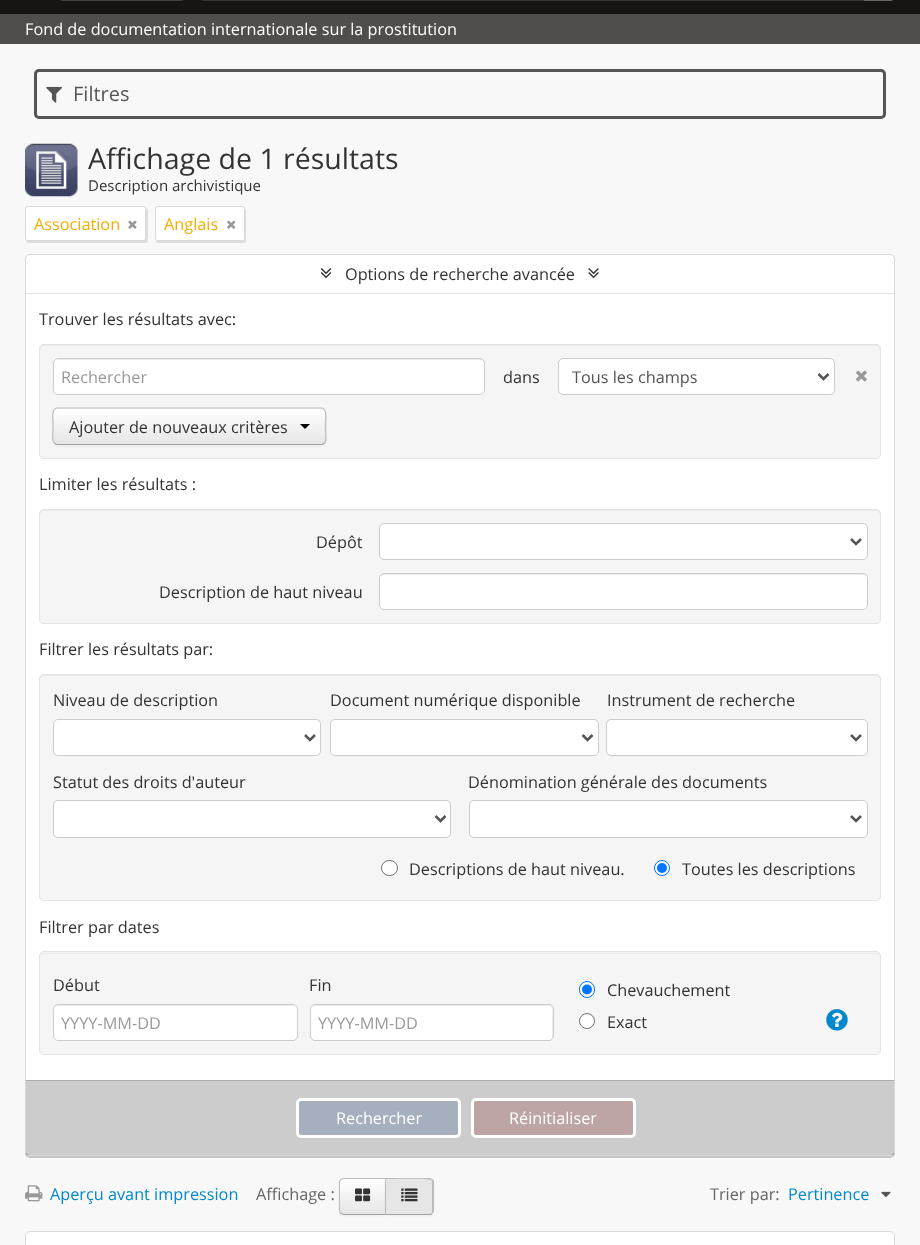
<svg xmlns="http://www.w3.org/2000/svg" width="920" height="1245">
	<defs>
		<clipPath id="clip1"><rect x="53" y="408" width="273" height="37" rx="5" /></clipPath>
		<linearGradient id="g1" gradientUnits="userSpaceOnUse" x1="189" y1="409" x2="189" y2="444"><stop offset="0" stop-color="#FFFFFF" /><stop offset="1" stop-color="#E6E6E6" /></linearGradient>
		<clipPath id="clip2"><path d="M344 1178H386V1215H344C341 1215 339 1213 339 1210V1183C339 1180 341 1178 344 1178Z" /></clipPath>
		<linearGradient id="g2" gradientUnits="userSpaceOnUse" x1="363" y1="1179" x2="363" y2="1214"><stop offset="0" stop-color="#FFFFFF" /><stop offset="1" stop-color="#E6E6E6" /></linearGradient>
	</defs>
	<rect width="100%" height="100%" fill="#F8F8F8" />
	<rect x="0" y="0" width="920" height="14" fill="#161514" />
	<rect x="58" y="-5" width="127" height="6" rx="5" fill="#404040" />
	<rect x="199" y="-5" width="696" height="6" rx="5" fill="#333333" />
	<path d="M864-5H890C893-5 895-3 895 0V-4C895-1 893 1 890 1H864Z" fill="#666666" />
	<rect x="0" y="14" width="920" height="30" fill="#4F4E4D" />
	<text x="25" y="35" font-family="Open Sans" font-size="16.25" fill="#FFFFFF">Fond de documentation internationale sur la prostitution</text>
	<rect x="35.5" y="70.5" width="849" height="47" rx="3.5" fill="none" stroke="#555555" stroke-width="3" />
	<image x="46" y="86" width="16" height="17" href="assets/img1.png" />
	<text x="73" y="101" font-family="Open Sans" font-size="20" fill="#555555">Filtres</text>
	<image x="25" y="143" width="53" height="54" href="assets/img2.png" />
	<text x="88" y="169" font-family="Open Sans" font-size="28.5" fill="#333333">Affichage de 1 résultats</text>
	<text x="88" y="191" font-family="Open Sans" font-size="15" fill="#333333">Description archivistique</text>
	<rect x="26" y="208" width="122" height="35" rx="2.5" fill="#000000" fill-opacity="0.1" filter="blur(0.5px)" />
	<rect x="25.5" y="206.5" width="120" height="34" rx="2" fill="#FFFFFF" stroke="#D9D9D9" />
	<text x="34" y="230" font-family="Open Sans" font-size="16.25" fill="#F6AC00">Association</text>
	<image x="128" y="220" width="9" height="9" href="assets/img3.png" />
	<rect x="156" y="208" width="90" height="35" rx="2.5" fill="#000000" fill-opacity="0.1" filter="blur(0.5px)" />
	<rect x="155.5" y="206.5" width="89" height="34" rx="2" fill="#FFFFFF" stroke="#D9D9D9" />
	<text x="164" y="230" font-family="Open Sans" font-size="16.25" fill="#F6AC00">Anglais</text>
	<image x="227" y="220" width="9" height="9" href="assets/img4.png" />
	<rect x="25" y="255" width="870" height="903" rx="5" fill="#000000" fill-opacity="0.2" filter="blur(0.5px)" />
	<rect x="25.5" y="254.5" width="869" height="901" rx="4.5" fill="#FFFFFF" stroke="#D9D9D9" />
	<image x="320" y="268" width="12" height="11" href="assets/img5.png" />
	<text x="345" y="280" font-family="Open Sans" font-size="16.25" fill="#333333">Options de recherche avancée</text>
	<image x="588" y="268" width="11" height="11" href="assets/img6.png" />
	<rect x="26" y="293" width="868" height="1" fill="#E3E3E3" />
	<text x="39" y="325" font-family="Open Sans" font-size="16.25" fill="#333333">Trouver les résultats avec:</text>
	<rect x="39" y="344" width="842" height="115" rx="5" fill="#F5F5F5" />
	<path d="M44 346H876C878 346 880 348 880 350C880 347 879 345 876 345H44C41 345 40 347 40 350C40 348 42 346 44 346Z" fill="#E9E9E9" />
	<rect x="39.5" y="344.5" width="841" height="114" rx="4.5" fill="none" stroke="#E3E3E3" />
	<rect x="53" y="358" width="432" height="37" rx="5" fill="#FFFFFF" />
	<path d="M58 360H480C482 360 484 362 484 364C484 361 483 359 480 359H58C57 359 55 360 55 361L54 364C54 362 55 360 58 360Z" fill="#ECECEC" />
	<rect x="53.5" y="358.5" width="431" height="36" rx="4.5" fill="none" stroke="#CCCCCC" />
	<text x="61" y="383" font-family="Open Sans" font-size="16.25" fill="#999999">Rechercher</text>
	<text x="503" y="383" font-family="Open Sans" font-size="16.25" fill="#333333">dans</text>
	<rect x="558.5" y="358.5" width="276" height="36" rx="4.5" fill="#FFFFFF" stroke="#CCCCCC" />
	<path d="M818.5 374L823.5 379L828.5 374" fill="none" stroke="#555555" stroke-width="2.5" />
	<text x="572" y="383" font-family="Open Sans" font-size="16.25" fill="#555555">Tous les champs</text>
	<image x="856" y="370" width="11" height="12" href="assets/img7.png" />
	<rect x="53" y="409" width="273" height="37" rx="5" fill="#000000" fill-opacity="0.05" filter="blur(1px)" />
	<g clip-path="url(#clip1)">
		<rect x="53" y="409" width="273" height="35" fill="url(#g1)" />
	</g>
	<path d="M324.5 443C323.5 444 322.5 444.5 321 444.5H57.5C56.5 444.5 55 444 54.5 443" fill="none" stroke="#A2A2A2" stroke-width="1.2" />
	<path d="M54.5 443C51.5 440.5 53 434 53 431V421.5C53 418.5 51 408 57.5 408H321C327.5 408 325.5 418.5 325.5 421.5V431C325.5 434 327 440.5 324.5 443" fill="none" stroke="#BBBBBB" stroke-width="1.2" />
	<text x="69" y="433" font-family="Open Sans" font-size="16.25" fill="#333333">Ajouter de nouveaux critères</text>
	<path d="M300 424H310L305 429Z" fill="#000000" />
	<text x="39" y="490" font-family="Open Sans" font-size="16.25" fill="#333333">Limiter les résultats :</text>
	<rect x="39" y="509" width="842" height="115" rx="5" fill="#F5F5F5" />
	<path d="M44 511H876C878 511 880 513 880 515C880 512 879 510 876 510H44C41 510 40 512 40 515C40 513 42 511 44 511Z" fill="#E9E9E9" />
	<rect x="39.5" y="509.5" width="841" height="114" rx="4.5" fill="none" stroke="#E3E3E3" />
	<text x="316" y="548" font-family="Open Sans" font-size="16.25" fill="#333333">Dépôt</text>
	<rect x="379.5" y="523.5" width="488" height="36" rx="4.5" fill="#FFFFFF" stroke="#CCCCCC" />
	<path d="M851 539L856 544L861 539" fill="none" stroke="#555555" stroke-width="2.5" />
	<text x="159" y="598" font-family="Open Sans" font-size="16.25" fill="#333333">Description de haut niveau</text>
	<rect x="379" y="573" width="489" height="37" rx="5" fill="#FFFFFF" />
	<path d="M384 575H862C865 575 866 577 866 579C866 576 865 574 862 574H384C381 574 380 576 380 579C380 577 382 575 384 575Z" fill="#ECECEC" />
	<rect x="379.5" y="573.5" width="488" height="36" rx="4.5" fill="none" stroke="#CCCCCC" />
	<text x="39" y="655" font-family="Open Sans" font-size="16.25" fill="#333333">Filtrer les résultats par:</text>
	<rect x="39" y="674" width="842" height="227" rx="5" fill="#F5F5F5" />
	<path d="M44 676H876C878 676 880 678 880 680C880 677 879 675 876 675H44C41 675 40 677 40 680C40 678 42 676 44 676Z" fill="#E9E9E9" />
	<rect x="39.5" y="674.5" width="841" height="226" rx="4.5" fill="none" stroke="#E3E3E3" />
	<text x="53" y="706" font-family="Open Sans" font-size="16.25" fill="#333333">Niveau de description</text>
	<rect x="53.5" y="719.5" width="267" height="36" rx="4.5" fill="#FFFFFF" stroke="#CCCCCC" />
	<path d="M305 735L310 740L315 735" fill="none" stroke="#555555" stroke-width="2.5" />
	<text x="330" y="706" font-family="Open Sans" font-size="16.25" fill="#333333">Document numérique disponible</text>
	<rect x="330.5" y="719.5" width="268" height="36" rx="4.5" fill="#FFFFFF" stroke="#CCCCCC" />
	<path d="M582.5 735L587.5 740L592.5 735" fill="none" stroke="#555555" stroke-width="2.5" />
	<text x="607" y="706" font-family="Open Sans" font-size="16.25" fill="#333333">Instrument de recherche</text>
	<rect x="606.5" y="719.5" width="261" height="36" rx="4.5" fill="#FFFFFF" stroke="#CCCCCC" />
	<path d="M851 735L856 740L861 735" fill="none" stroke="#555555" stroke-width="2.5" />
	<text x="53" y="788" font-family="Open Sans" font-size="16.25" fill="#333333">Statut des droits d'auteur</text>
	<rect x="53.5" y="800.5" width="397" height="37" rx="4.5" fill="#FFFFFF" stroke="#CCCCCC" />
	<path d="M435.5 816L440.5 821L445.5 816" fill="none" stroke="#555555" stroke-width="2.5" />
	<text x="468" y="788" font-family="Open Sans" font-size="16.25" fill="#333333">Dénomination générale des documents</text>
	<rect x="469.5" y="800.5" width="398" height="37" rx="4.5" fill="#FFFFFF" stroke="#CCCCCC" />
	<path d="M851 816L856 821L861 816" fill="none" stroke="#555555" stroke-width="2.5" />
	<rect x="381.5" y="860.5" width="16" height="15" rx="7.5" fill="#FFFFFF" stroke="#767676" />
	<text x="409" y="875" font-family="Open Sans" font-size="16.25" fill="#333333">Descriptions de haut niveau.</text>
	<circle cx="662" cy="868" r="7.5" fill="#FFFFFF" stroke="#0075FF" />
	<circle cx="662" cy="868" r="5" fill="#0075FF" />
	<g font-family="Open Sans" font-size="16.25" fill="#333333">
		<text x="682" y="875">Toutes les descriptions</text>
		<text x="39" y="933">Filtrer par dates</text>
	</g>
	<rect x="39" y="951" width="842" height="104" rx="5" fill="#F5F5F5" />
	<path d="M44 954H876C878 954 880 955 880 958C880 955 879 953 876 953H44C41 953 40 955 40 958C40 955 42 954 44 954Z" fill="#E9E9E9" />
	<rect x="39.5" y="951.5" width="841" height="103" rx="4.5" fill="none" stroke="#E3E3E3" />
	<text x="53" y="991" font-family="Open Sans" font-size="16.25" fill="#333333">Début</text>
	<rect x="53" y="1004" width="245" height="37" rx="5" fill="#FFFFFF" />
	<path d="M58 1006H292C295 1006 296 1008 296 1010V1009C296 1007 294 1005 292 1005H58C56 1005 54 1007 54 1009V1010C54 1008 55 1006 58 1006Z" fill="#ECECEC" />
	<rect x="53.5" y="1004.5" width="244" height="36" rx="4.5" fill="none" stroke="#CCCCCC" />
	<text x="61" y="1029" font-family="Open Sans" font-size="16.25" fill="#999999">YYYY-MM-DD</text>
	<text x="309" y="991" font-family="Open Sans" font-size="16.25" fill="#333333">Fin</text>
	<rect x="310" y="1004" width="244" height="37" rx="5" fill="#FFFFFF" />
	<path d="M315 1006H549C554 1006 552 1017 552 1019V1039C553 1038 553 1037 553 1036V1009C553 1007 551 1005 549 1005H315C313 1005 311 1007 311 1009V1010C311 1008 313 1006 315 1006Z" fill="#ECECEC" />
	<rect x="310.5" y="1004.5" width="243" height="36" rx="4.5" fill="none" stroke="#CCCCCC" />
	<text x="318" y="1029" font-family="Open Sans" font-size="16.25" fill="#999999">YYYY-MM-DD</text>
	<rect x="579.5" y="981.5" width="15" height="16" rx="7.5" fill="#FFFFFF" stroke="#0075FF" />
	<circle cx="587" cy="989.5" r="5" fill="#0075FF" />
	<text x="607" y="996" font-family="Open Sans" font-size="16.25" fill="#333333">Chevauchement</text>
	<circle cx="587" cy="1021" r="7.5" fill="#FFFFFF" stroke="#767676" />
	<text x="607" y="1028" font-family="Open Sans" font-size="16.25" fill="#333333">Exact</text>
	<image x="826" y="1009" width="22" height="22" href="assets/img8.png" />
	<rect x="26" y="1081" width="868" height="74" fill="#000000" fill-opacity="0.2" />
	<rect x="26" y="1080" width="868" height="1" fill="#ADADAD" />
	<rect x="297.5" y="1099.5" width="162" height="37" rx="3.5" fill="#A5AFBE" stroke="#FFFFFF" stroke-width="3" />
	<text x="336" y="1124" font-family="Open Sans" font-size="16.25" fill="#FFFFFF">Rechercher</text>
	<rect x="472.5" y="1099.5" width="162" height="37" rx="3.5" fill="#BEA5A5" stroke="#FFFFFF" stroke-width="3" />
	<text x="509" y="1124" font-family="Open Sans" font-size="16.25" fill="#FFFFFF">Réinitialiser</text>
	<image x="25" y="1185" width="18" height="17" href="assets/img9.png" />
	<text x="50" y="1200" font-family="Open Sans" font-size="16.25" fill="#0088CC">Aperçu avant impression</text>
	<text x="256" y="1200" font-family="Open Sans" font-size="16.25" fill="#666666">Affichage :</text>
	<rect x="339" y="1179" width="47" height="37" rx="5" fill="#000000" fill-opacity="0.05" filter="blur(1px)" />
	<path d="M344 1178H386V1215H344C341 1215 339 1213 339 1210V1183C339 1180 341 1178 344 1178Z" fill="#F5F5F5" />
	<g clip-path="url(#clip2)">
		<rect x="339" y="1179" width="46" height="35" fill="url(#g2)" />
	</g>
	<path d="M344 1178L340 1179L341 1180L344 1179H385L386 1178Z" fill="#BBBBBB" />
	<path d="M344 1215H386L385 1214H344C343 1214 342 1213 341 1213H340C341 1214 342 1215 344 1215Z" fill="#A2A2A2" />
	<path d="M340.5 1179C339.5 1180 339 1181 339 1182V1210C339 1211.5 339.5 1212.5 340.5 1213.5L341 1212.5C340.5 1212 340 1211 340 1210V1182C340 1181 340.5 1180.5 341 1180Z" fill="#BBBBBB" />
	<image x="355" y="1188" width="16" height="14" href="assets/img10.png" />
	<rect x="385" y="1179" width="49" height="37" rx="5" fill="#000000" fill-opacity="0.05" filter="blur(1px)" />
	<path d="M385 1178H429C432 1178 434 1180 434 1183V1210C434 1213 432 1215 429 1215H385Z" fill="#E6E6E6" />
	<path d="M432 1179C431 1178 430 1178 429 1178H386V1179C392 1179 430 1178 431 1180Z" fill="#BBBBBB" />
	<path d="M432.5 1179L434 1181V1211.5L432.5 1213.5L431.5 1212.5C432 1212 432 1211 432 1210V1182C432 1181 432 1180.5 431.5 1180Z" fill="#BBBBBB" />
	<path d="M429 1215C430 1215 432 1215 432 1214L431 1213L430 1214H386L385 1215Z" fill="#A2A2A2" />
	<path d="M386 1179H386.5L385.5 1178H385V1215L386 1214Z" fill="#BBBBBB" />
	<image x="401" y="1188" width="17" height="14" href="assets/img11.png" />
	<text x="710" y="1200" font-family="Open Sans" font-size="16.25" fill="#666666">Trier par:</text>
	<text x="788" y="1200" font-family="Open Sans" font-size="16.25" fill="#0088CC">Pertinence</text>
	<image x="881" y="1191" width="10" height="6" href="assets/img12.png" />
	<rect x="25" y="1233" width="870" height="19" rx="5" fill="#000000" fill-opacity="0.2" filter="blur(0.5px)" />
	<rect x="25.5" y="1231.5" width="869" height="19" rx="4.5" fill="#FFFFFF" stroke="#D9D9D9" />
</svg>
